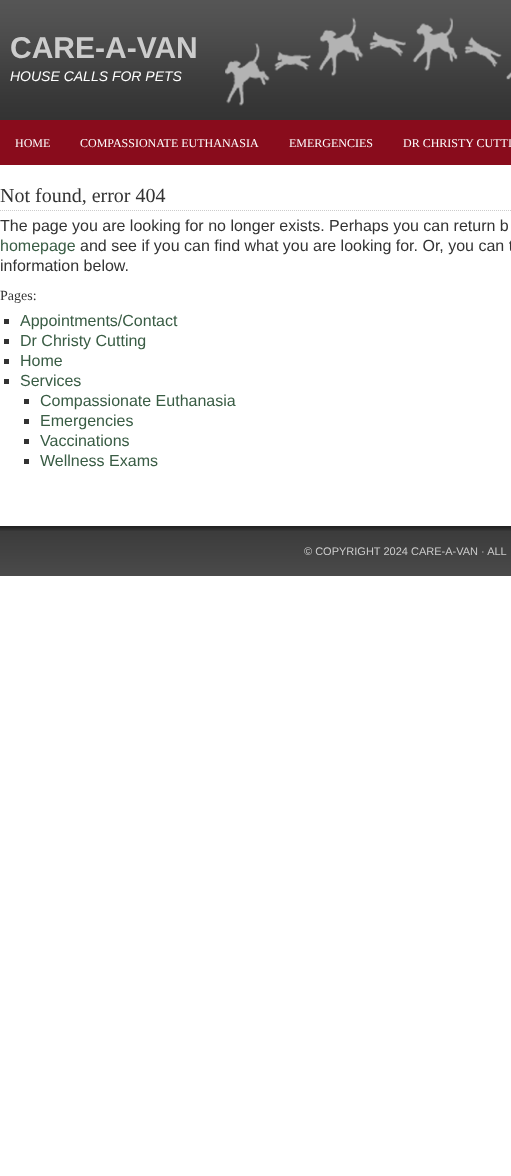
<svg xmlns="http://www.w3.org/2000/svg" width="511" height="1176">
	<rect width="100%" height="100%" fill="#FFFFFF" />
	<image x="0" y="0" width="511" height="120" href="assets/img1.png" />
	<text x="10" y="58" font-family="Liberation Sans" font-size="30" font-weight="700" fill="#CCCCCC">CARE-A-VAN</text>
	<text x="10" y="81" font-family="Liberation Sans" font-size="14" font-style="italic" fill="#FFFFFF">HOUSE CALLS FOR PETS</text>
	<image x="225" y="17" width="286" height="89" href="assets/img2.png" />
	<rect x="0" y="120" width="511" height="45" fill="#890C1C" />
	<g font-family="Liberation Serif" font-size="12" fill="#FFFFFF">
		<text x="15" y="147">HOME</text>
		<text x="80" y="147">COMPASSIONATE EUTHANASIA</text>
		<text x="289" y="147">EMERGENCIES</text>
		<text x="403" y="147">DR CHRISTY CUTTI</text>
	</g>
	<path d="M0 210.5H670" fill="none" stroke="#CCCCCC" stroke-dasharray="1 1" />
	<text x="0" y="202" font-family="Liberation Serif" font-size="20" fill="#333333">Not found, error 404</text>
	<text x="0" y="231" font-family="Liberation Sans" font-size="16" fill="#333333">The page you are looking for no longer exists. Perhaps you can return b</text>
	<text x="0" y="251" font-family="Liberation Sans" font-size="16" fill="#395C44">homepage</text>
	<g font-family="Liberation Sans" font-size="16" fill="#333333">
		<text x="80" y="251">and see if you can find what you are looking for. Or, you can t</text>
		<text x="0" y="271">information below.</text>
	</g>
	<text x="0" y="300" font-family="Liberation Serif" font-size="14" fill="#333333">Pages:</text>
	<rect x="4" y="319" width="5" height="5" fill="#333333" />
	<text x="20" y="326" font-family="Liberation Sans" font-size="16" fill="#395C44">Appointments/Contact</text>
	<rect x="4" y="339" width="5" height="5" fill="#333333" />
	<text x="20" y="346" font-family="Liberation Sans" font-size="16" fill="#395C44">Dr Christy Cutting</text>
	<rect x="4" y="359" width="5" height="5" fill="#333333" />
	<text x="20" y="366" font-family="Liberation Sans" font-size="16" fill="#395C44">Home</text>
	<rect x="4" y="379" width="5" height="5" fill="#333333" />
	<text x="20" y="386" font-family="Liberation Sans" font-size="16" fill="#395C44">Services</text>
	<rect x="24" y="399" width="5" height="5" fill="#333333" />
	<text x="40" y="406" font-family="Liberation Sans" font-size="16" fill="#395C44">Compassionate Euthanasia</text>
	<rect x="24" y="419" width="5" height="5" fill="#333333" />
	<text x="40" y="426" font-family="Liberation Sans" font-size="16" fill="#395C44">Emergencies</text>
	<rect x="24" y="439" width="5" height="5" fill="#333333" />
	<text x="40" y="446" font-family="Liberation Sans" font-size="16" fill="#395C44">Vaccinations</text>
	<rect x="24" y="459" width="5" height="5" fill="#333333" />
	<text x="40" y="466" font-family="Liberation Sans" font-size="16" fill="#395C44">Wellness Exams</text>
	<image x="0" y="526" width="511" height="50" href="assets/img3.png" />
	<text x="304" y="555" font-family="Liberation Sans" font-size="11" fill="#CCCCCC">© COPYRIGHT 2024 CARE-A-VAN · ALL</text>
</svg>
